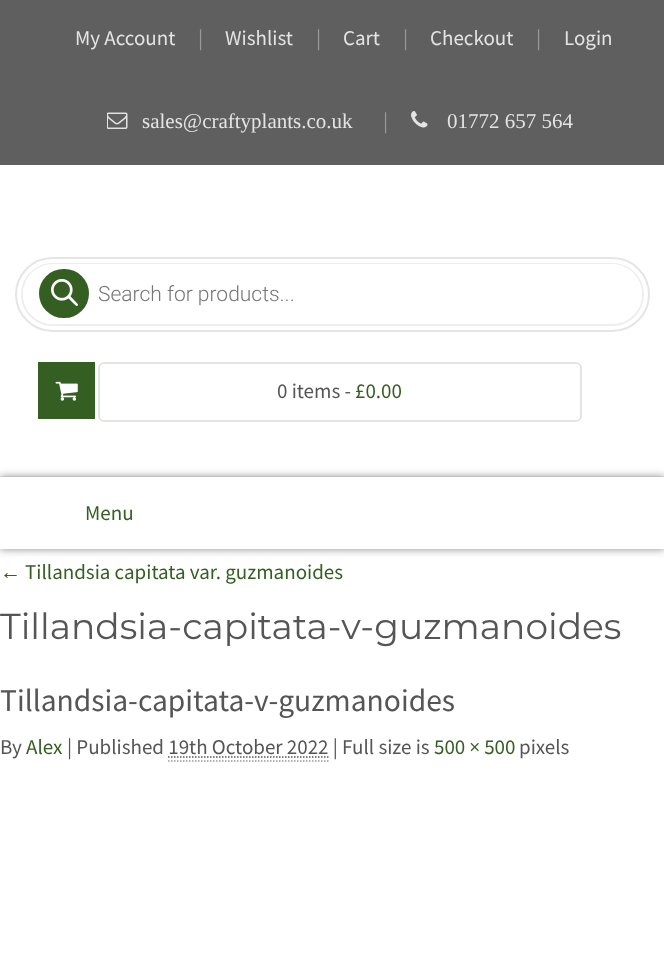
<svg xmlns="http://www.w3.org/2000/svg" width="664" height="963">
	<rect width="100%" height="100%" fill="#FFFFFF" />
	<rect x="0" y="0" width="664" height="165" fill="#5F5F5F" />
	<text x="75" y="45" font-family="Source Sans Pro" font-size="21" fill="#E4E4E4">My Account</text>
	<text x="198" y="45" font-family="Source Sans Pro" font-size="21" fill="#999999">|</text>
	<text x="225" y="45" font-family="Source Sans Pro" font-size="21" fill="#E4E4E4">Wishlist</text>
	<text x="316" y="45" font-family="Source Sans Pro" font-size="21" fill="#999999">|</text>
	<text x="343" y="45" font-family="Source Sans Pro" font-size="21" fill="#E4E4E4">Cart</text>
	<text x="403" y="45" font-family="Source Sans Pro" font-size="21" fill="#999999">|</text>
	<text x="430" y="45" font-family="Source Sans Pro" font-size="21" fill="#E4E4E4">Checkout</text>
	<text x="536" y="45" font-family="Source Sans Pro" font-size="21" fill="#999999">|</text>
	<text x="564" y="45" font-family="Source Sans Pro" font-size="21" fill="#E4E4E4">Login</text>
	<image x="107" y="112" width="21" height="17" href="assets/img1.png" />
	<text x="142" y="128" font-family="Liberation Serif" font-size="21" fill="#E4E4E4">sales@craftyplants.co.uk</text>
	<text x="383" y="128" font-family="Source Sans Pro" font-size="21" fill="#999999">|</text>
	<image x="411" y="111" width="17" height="17" href="assets/img2.png" />
	<text x="447" y="128" font-family="Liberation Serif" font-size="21" fill="#E4E4E4">01772 657 564</text>
	<rect x="0" y="476" width="664" height="1" fill="#EEEEEE" />
	<rect x="16" y="258" width="633" height="73" rx="36.5" fill="none" stroke="#E5E5E5" stroke-width="2" />
	<rect x="22" y="264" width="621" height="61" rx="30.5" fill="none" stroke="#EEEEEE" stroke-width="2" />
	<rect x="24.5" y="265.5" width="616" height="57" rx="28.5" fill="#FFFFFF" stroke="#FFFFFF" stroke-width="3" />
	<rect x="39" y="269" width="50" height="49" rx="24.5" fill="#355E22" />
	<image x="51" y="279" width="27" height="27" href="assets/img3.png" />
	<text x="98" y="301" font-family="Roboto" font-size="21" font-weight="300" fill="#777777">Search for products...</text>
	<rect x="38" y="362" width="57" height="57" fill="#355E22" />
	<image x="55" y="381" width="23" height="20" href="assets/img4.png" />
	<rect x="99" y="363" width="482" height="58" rx="5" fill="none" stroke="#E4E4E4" stroke-width="2" />
	<text x="277" y="398" font-family="Source Sans Pro" font-size="21" fill="#555555">0 items -</text>
	<text x="355" y="398" font-family="Source Sans Pro" font-size="21" fill="#355E22">£0.00</text>
	<rect x="0" y="477" width="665" height="72" fill="#888888" filter="blur(4px)" />
	<rect x="0" y="477" width="664" height="72" fill="#FFFFFF" />
	<text x="85" y="520" font-family="Source Sans Pro" font-size="21" fill="#355E22">Menu</text>
	<text x="0" y="579" font-family="Liberation Sans" font-size="21" fill="#355E22">←</text>
	<text x="25" y="579" font-family="Source Sans Pro" font-size="21" fill="#355E22">Tillandsia capitata var. guzmanoides</text>
	<text x="0" y="639" font-family="Montserrat" font-size="36" fill="#555555">Tillandsia-capitata-v-guzmanoides</text>
	<text x="0" y="711" font-family="Source Sans Pro" font-size="31.5" fill="#555555">Tillandsia-capitata-v-guzmanoides</text>
	<text x="0" y="754" font-family="Source Sans Pro" font-size="21" fill="#555555">By</text>
	<text x="26" y="754" font-family="Source Sans Pro" font-size="21" fill="#355E22">Alex</text>
	<text x="67" y="754" font-family="Source Sans Pro" font-size="21" fill="#555555">| Published 19th October 2022 | Full size is</text>
	<text x="434" y="754" font-family="Source Sans Pro" font-size="21" fill="#355E22">500 × 500</text>
	<text x="519" y="754" font-family="Source Sans Pro" font-size="21" fill="#555555">pixels</text>
	<path d="M168 757H328.5" fill="none" stroke="#555555" stroke-width="1.5" stroke-dasharray="1.5 1.5" />
	<path d="M168 761H328.5" fill="none" stroke="#999999" stroke-width="1.5" stroke-dasharray="1.5 1.5" />
</svg>
